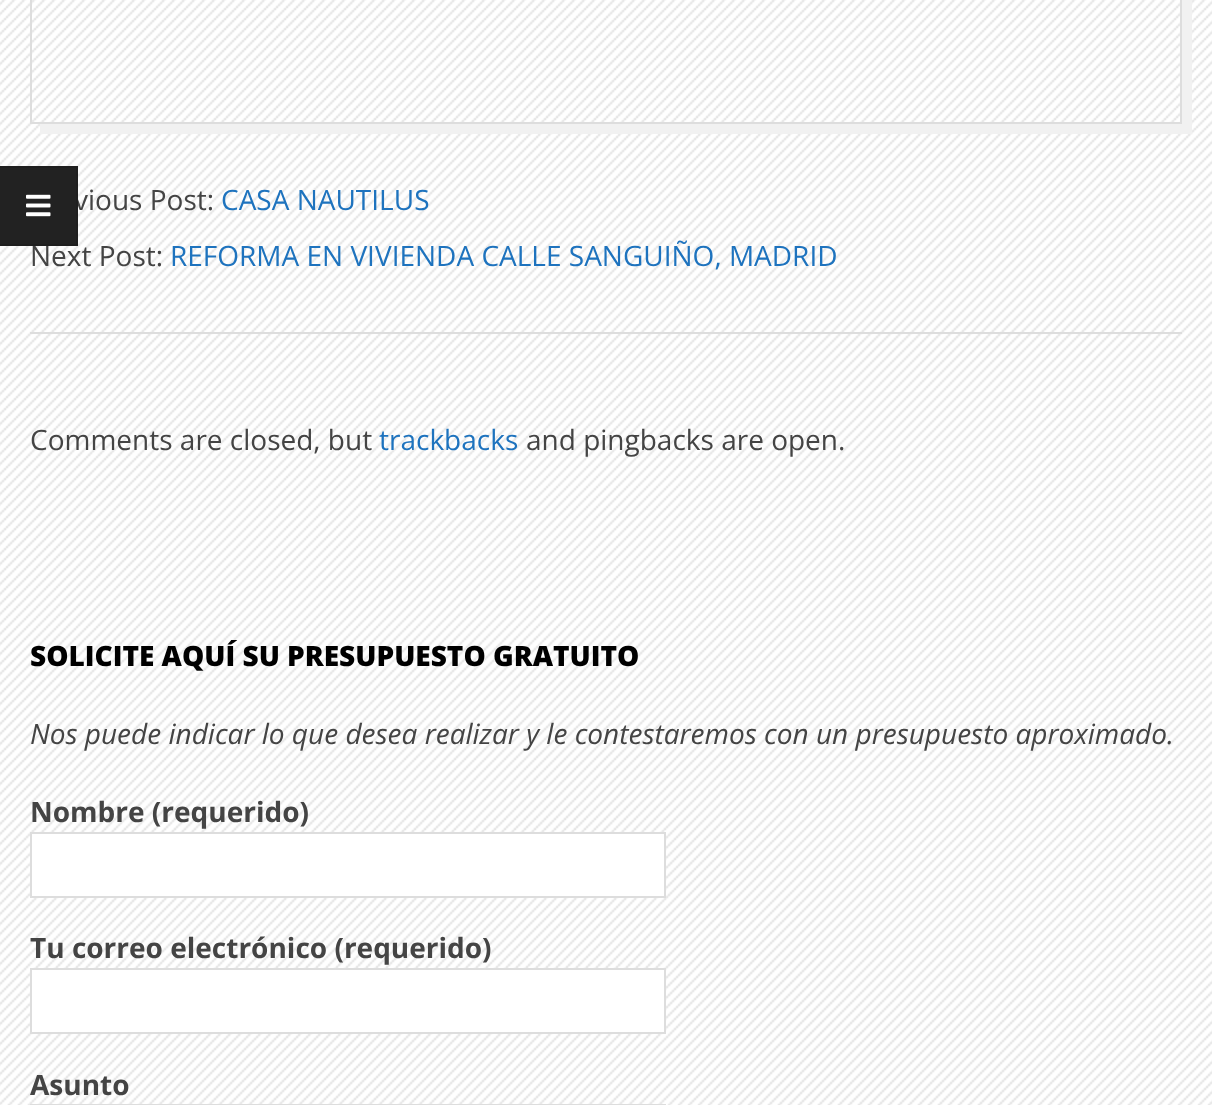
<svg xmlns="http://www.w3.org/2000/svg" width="1212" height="1105">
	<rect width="100%" height="100%" fill="#FFFFFF" />
	<image x="0" y="0" width="1212" height="1105" href="assets/img1.png" />
	<text x="74" y="210" font-family="Open Sans" font-size="28" fill="#444444">vious Post:</text>
	<rect x="0" y="166" width="78" height="80" fill="#222222" />
	<path d="M0 166H78L76 168H0Z" fill="#1F1F1F" />
	<path d="M78 166V246L76 244V168Z" fill="#1F1F1F" />
	<path d="M78 246H0V244H76Z" fill="#1F1F1F" />
	<image x="26" y="194" width="25" height="23" href="assets/img2.png" />
	<path d="M40 124V134H1192V-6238H1182V124Z" fill="#F1F1F1" />
	<rect x="31" y="-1" width="1150" height="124" fill="none" stroke="#DDDDDD" stroke-width="2" />
	<text x="221" y="210" font-family="Open Sans" font-size="28" fill="#1E73BE">CASA NAUTILUS</text>
	<text x="30" y="266" font-family="Open Sans" font-size="28" fill="#444444">Next Post:</text>
	<text x="170" y="266" font-family="Open Sans" font-size="28" fill="#1E73BE">REFORMA EN VIVIENDA CALLE SANGUIÑO, MADRID</text>
	<rect x="30" y="332" width="1152" height="2" fill="#DDDDDD" />
	<text x="30" y="450" font-family="Open Sans" font-size="28" fill="#444444">Comments are closed, but</text>
	<text x="379" y="450" font-family="Open Sans" font-size="28" fill="#1E73BE">trackbacks</text>
	<text x="526" y="450" font-family="Open Sans" font-size="28" fill="#444444">and pingbacks are open.</text>
	<text x="30" y="666" font-family="Open Sans" font-size="28" font-weight="800" fill="#000000">SOLICITE AQUÍ SU PRESUPUESTO GRATUITO</text>
	<text x="30" y="744" font-family="Open Sans" font-size="28" font-style="italic" fill="#444444">Nos puede indicar lo que desea realizar y le contestaremos con un presupuesto aproximado.</text>
	<text x="30" y="822" font-family="Open Sans" font-size="28" font-weight="700" fill="#444444">Nombre (requerido)</text>
	<rect x="31" y="833" width="634" height="64" fill="#FFFFFF" stroke="#DDDDDD" stroke-width="2" />
	<text x="30" y="958" font-family="Open Sans" font-size="28" font-weight="700" fill="#444444">Tu correo electrónico (requerido)</text>
	<rect x="31" y="969" width="634" height="64" fill="#FFFFFF" stroke="#DDDDDD" stroke-width="2" />
	<text x="30" y="1095" font-family="Open Sans" font-size="28" font-weight="700" fill="#444444">Asunto</text>
	<rect x="31" y="1105" width="634" height="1" fill="none" stroke="#DDDDDD" stroke-width="2" />
</svg>
